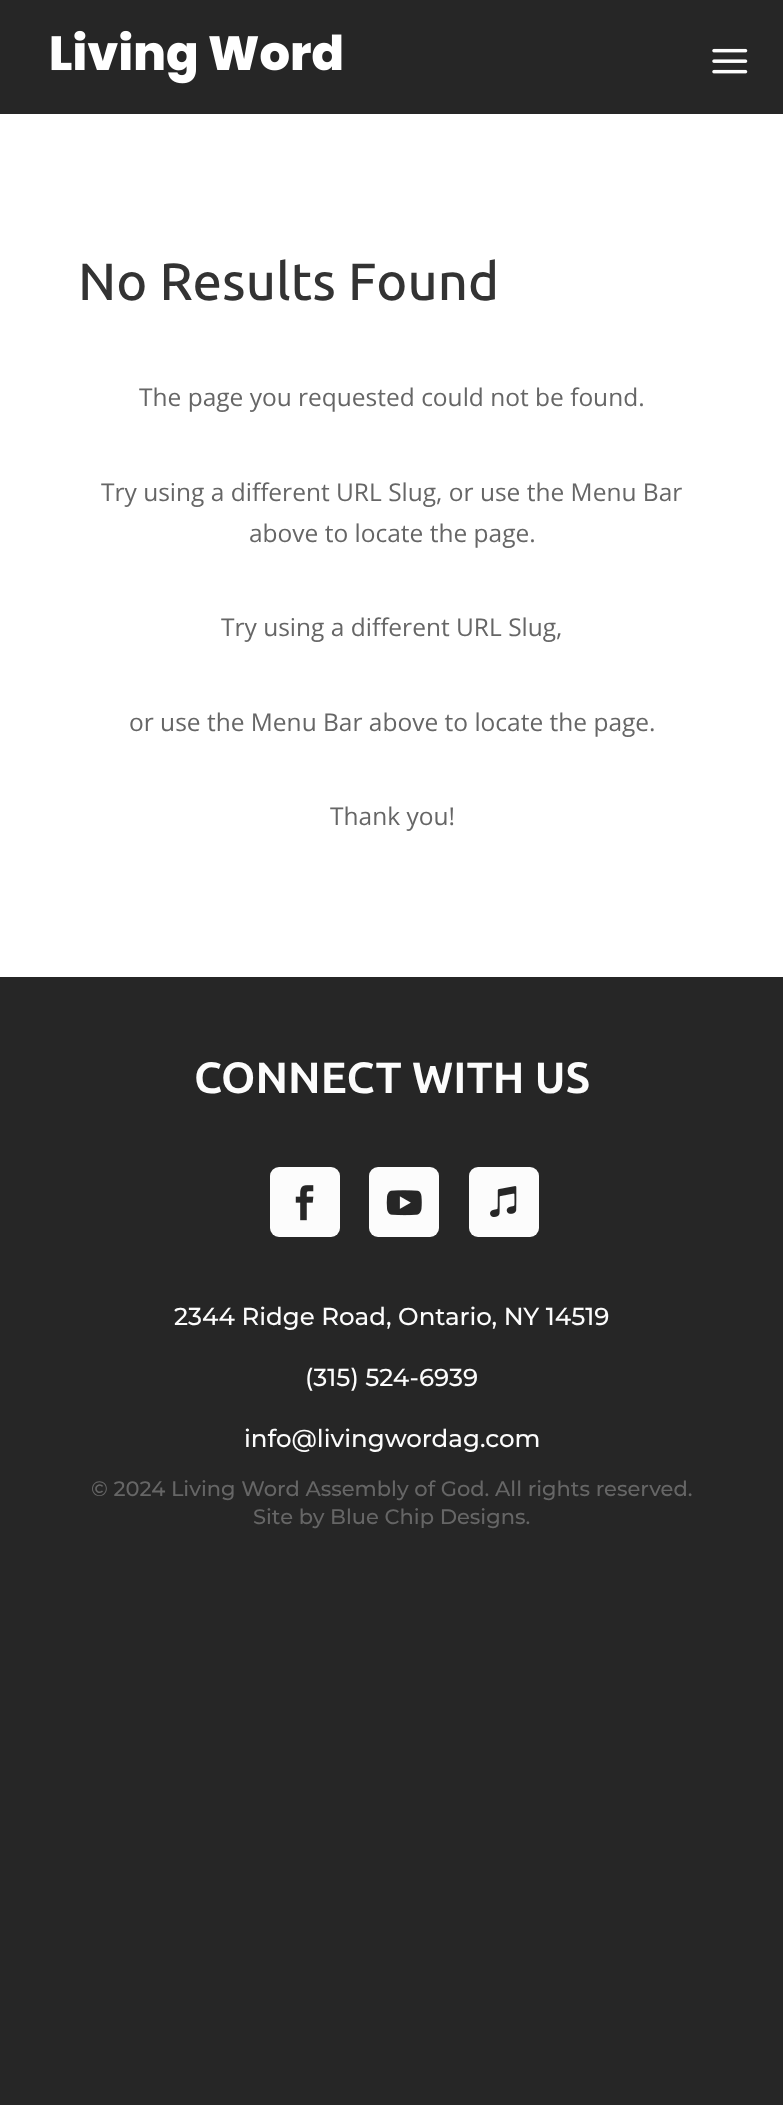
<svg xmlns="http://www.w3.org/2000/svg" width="783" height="2105">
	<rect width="100%" height="100%" fill="#262626" />
	<image x="51" y="30" width="291" height="54" href="assets/img1.png" />
	<image x="712" y="48" width="36" height="26" href="assets/img2.png" />
	<rect x="0" y="114" width="783" height="863" fill="#FFFFFF" />
	<text x="78" y="300" font-family="Ubuntu" font-size="52.5" font-weight="500" fill="#333333">No Results Found</text>
	<g font-family="Open Sans" font-size="24.5" fill="#666666">
		<text x="139" y="406">The page you requested could not be found.</text>
		<text x="101" y="501">Try using a different URL Slug, or use the Menu Bar</text>
		<text x="249" y="542">above to locate the page.</text>
		<text x="221" y="636">Try using a different URL Slug,</text>
		<text x="129" y="731">or use the Menu Bar above to locate the page.</text>
		<text x="330" y="825">Thank you!</text>
	</g>
	<text x="194" y="1093" font-family="Ubuntu" font-size="43.75" font-weight="700" fill="#FCFCFC">CONNECT WITH US</text>
	<rect x="270" y="1167" width="70" height="70" rx="9" fill="#FCFCFC" />
	<image x="295" y="1185" width="19" height="36" href="assets/img3.png" />
	<rect x="369" y="1167" width="70" height="70" rx="9" fill="#FCFCFC" />
	<image x="386" y="1190" width="36" height="26" href="assets/img4.png" />
	<rect x="469" y="1167" width="70" height="70" rx="9" fill="#FCFCFC" />
	<image x="490" y="1186" width="27" height="31" href="assets/img5.png" />
	<g font-family="Montserrat" font-size="24.5" font-weight="500" fill="#FCFCFC">
		<text x="174" y="1325">2344 Ridge Road, Ontario, NY 14519</text>
		<text x="305" y="1386">(315) 524-6939</text>
		<text x="244" y="1447">info@livingwordag.com</text>
	</g>
	<g font-family="Montserrat" font-size="21" font-weight="500" fill="#666666">
		<text x="91" y="1496">© 2024 Living Word Assembly of God. All rights reserved.</text>
		<text x="253" y="1524">Site by Blue Chip Designs.</text>
	</g>
</svg>
